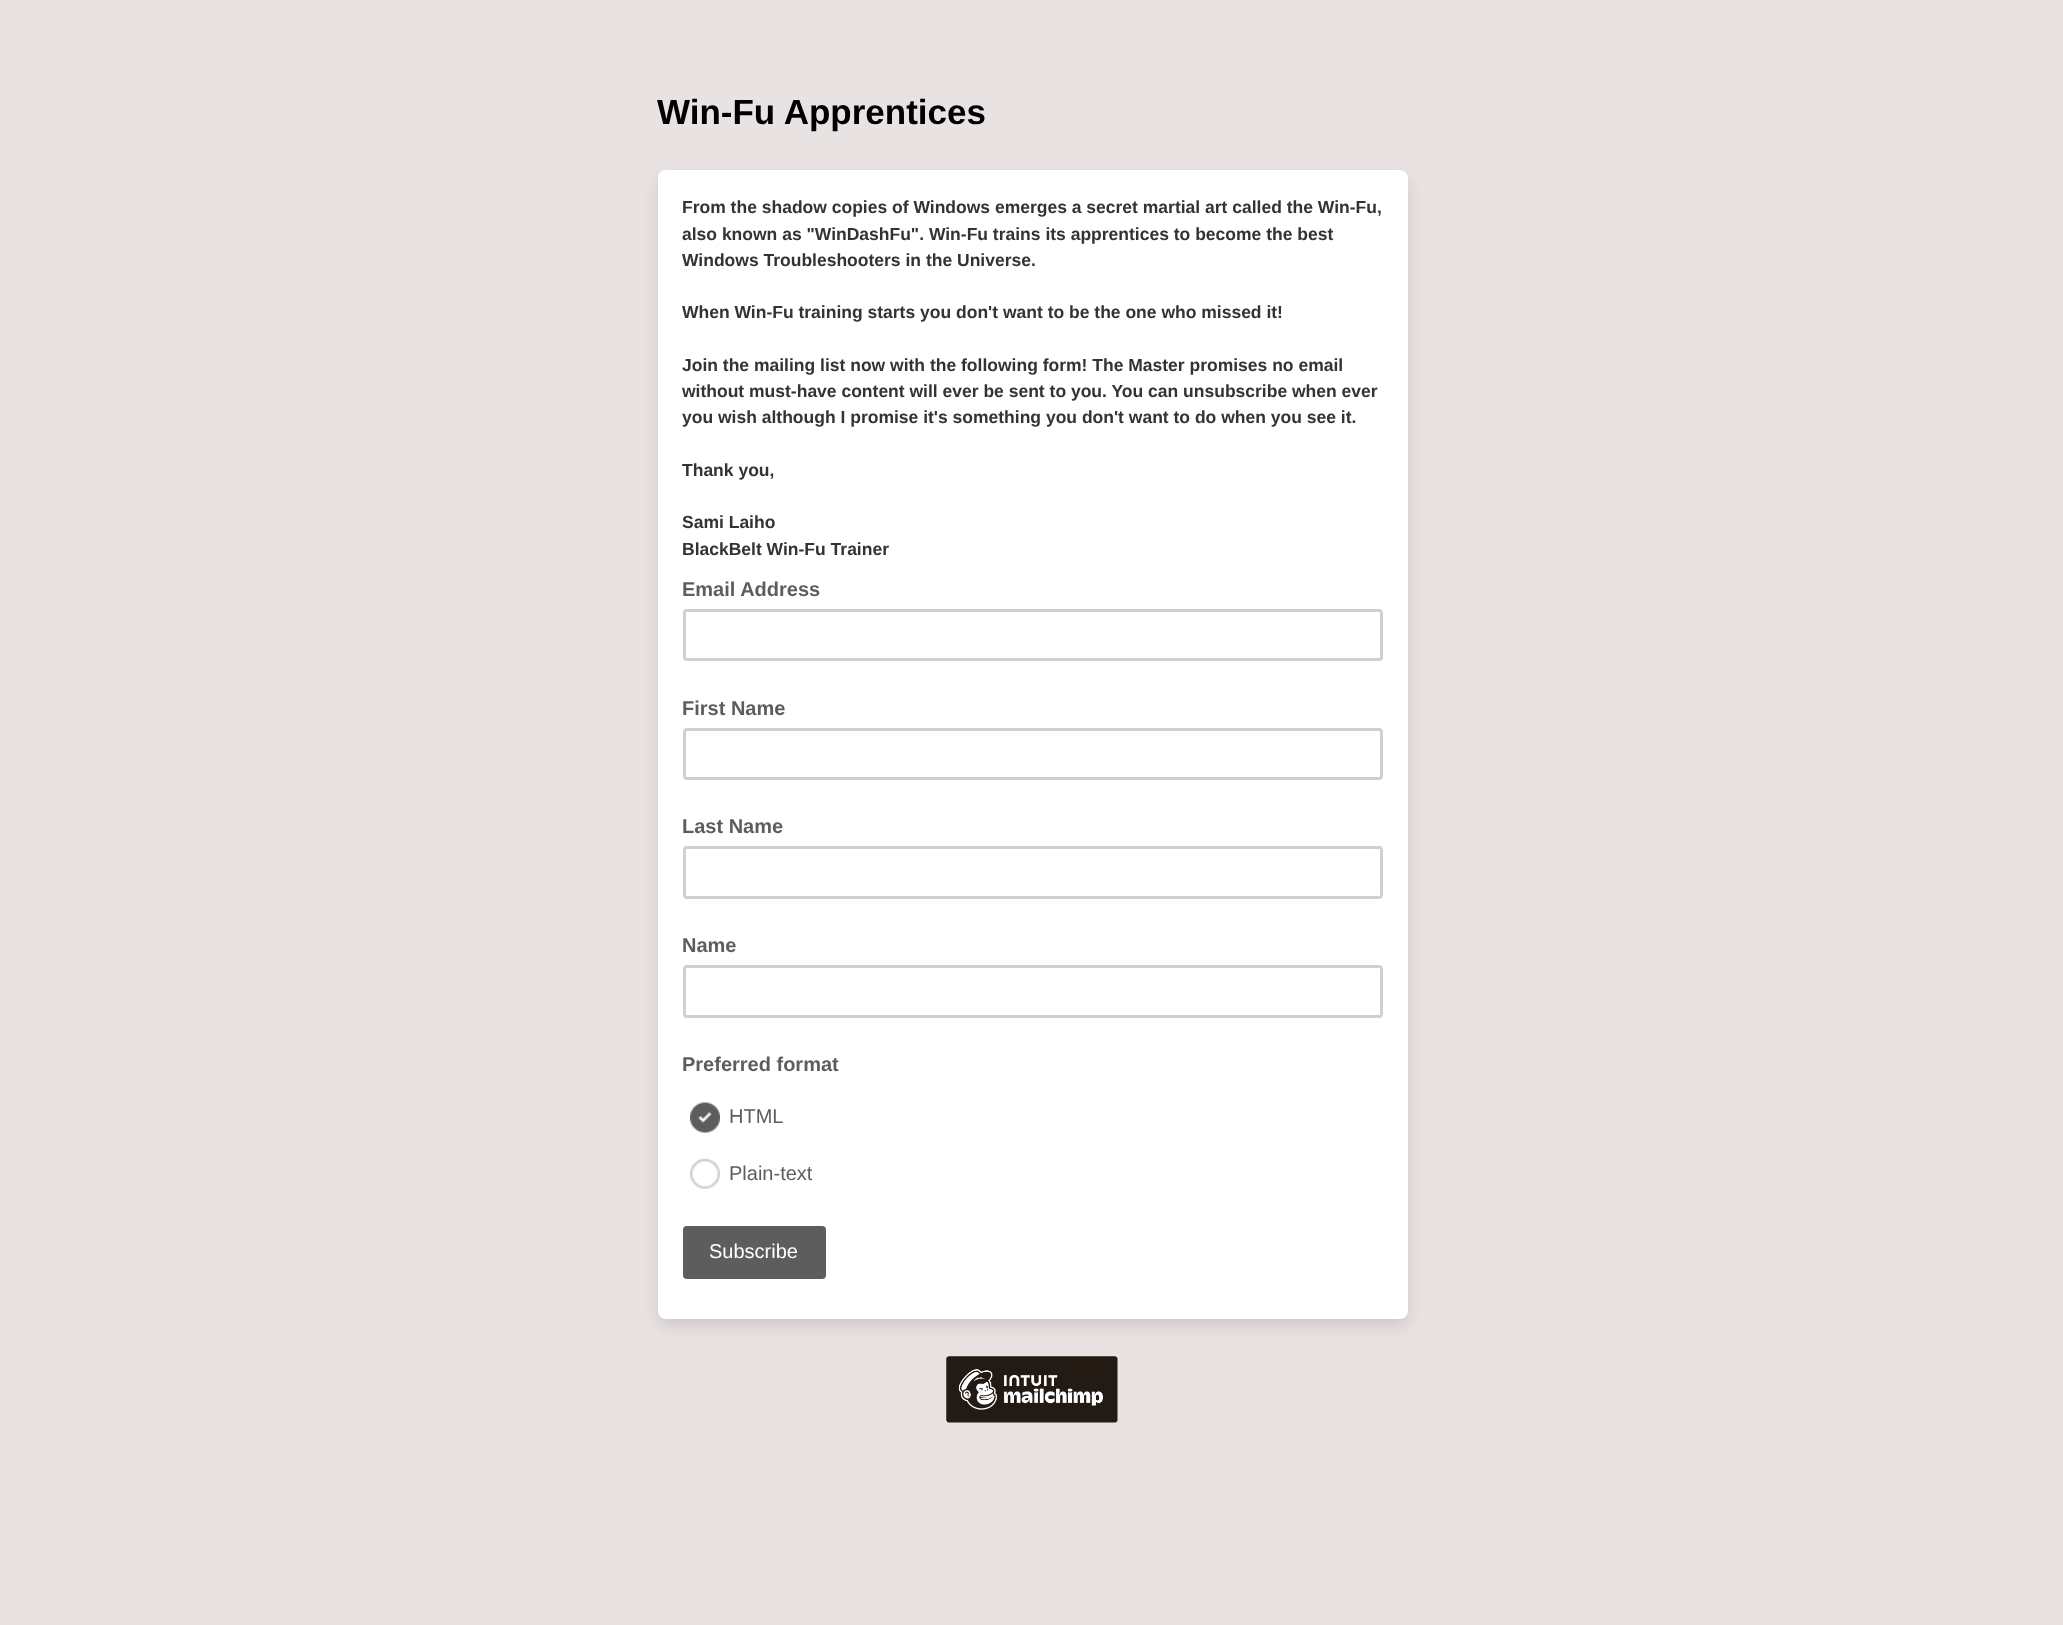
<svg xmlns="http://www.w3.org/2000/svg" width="2063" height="1625">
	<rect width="100%" height="100%" fill="#E9E2E2" />
	<text x="657" y="124" font-family="Liberation Sans" font-size="35" font-weight="700" fill="#000000">Win-Fu Apprentices</text>
	<rect x="658" y="178" width="750" height="1148" rx="8" fill="#0D1216" fill-opacity="0.12" filter="blur(7.5px)" />
	<rect x="658" y="170" width="750" height="1149" rx="8" fill="#FFFFFF" />
	<g font-family="Liberation Sans" font-size="17.5" font-weight="700" fill="#333333">
		<text x="682" y="213">From the shadow copies of Windows emerges a secret martial art called the Win-Fu,</text>
		<text x="682" y="240">also known as "WinDashFu". Win-Fu trains its apprentices to become the best</text>
		<text x="682" y="266">Windows Troubleshooters in the Universe.</text>
		<text x="682" y="318">When Win-Fu training starts you don't want to be the one who missed it!</text>
		<text x="682" y="371">Join the mailing list now with the following form! The Master promises no email</text>
		<text x="682" y="397">without must-have content will ever be sent to you. You can unsubscribe when ever</text>
		<text x="682" y="423">you wish although I promise it's something you don't want to do when you see it.</text>
		<text x="682" y="476">Thank you,</text>
		<text x="682" y="528">Sami Laiho</text>
		<text x="682" y="555">BlackBelt Win-Fu Trainer</text>
	</g>
	<text x="682" y="596" font-family="Liberation Sans" font-size="20" font-weight="700" fill="#5D5D5D">Email Address</text>
	<rect x="684.5" y="610.5" width="697" height="49" rx="2.5" fill="none" stroke="#D0D0D0" stroke-width="3" />
	<text x="682" y="715" font-family="Liberation Sans" font-size="20" font-weight="700" fill="#5D5D5D">First Name</text>
	<rect x="684.5" y="729.5" width="697" height="49" rx="2.5" fill="none" stroke="#D0D0D0" stroke-width="3" />
	<text x="682" y="833" font-family="Liberation Sans" font-size="20" font-weight="700" fill="#5D5D5D">Last Name</text>
	<rect x="684.5" y="847.5" width="697" height="50" rx="2.5" fill="none" stroke="#D0D0D0" stroke-width="3" />
	<text x="682" y="952" font-family="Liberation Sans" font-size="20" font-weight="700" fill="#5D5D5D">Name</text>
	<rect x="684.5" y="966.5" width="697" height="50" rx="2.5" fill="none" stroke="#D0D0D0" stroke-width="3" />
	<text x="682" y="1071" font-family="Liberation Sans" font-size="20" font-weight="700" fill="#5D5D5D">Preferred format</text>
	<image x="690" y="1102" width="30" height="31" href="assets/img1.png" />
	<text x="729" y="1123" font-family="Liberation Sans" font-size="20" fill="#5D5D5D">HTML</text>
	<image x="690" y="1158" width="30" height="31" href="assets/img2.png" />
	<text x="729" y="1180" font-family="Liberation Sans" font-size="20" fill="#5D5D5D">Plain-text</text>
	<rect x="683" y="1226" width="143" height="53" rx="4" fill="#5D5D5D" />
	<text x="709" y="1258" font-family="Liberation Sans" font-size="20" fill="#FFFFFF">Subscribe</text>
	<image x="946" y="1356" width="172" height="67" href="assets/img3.png" />
</svg>
